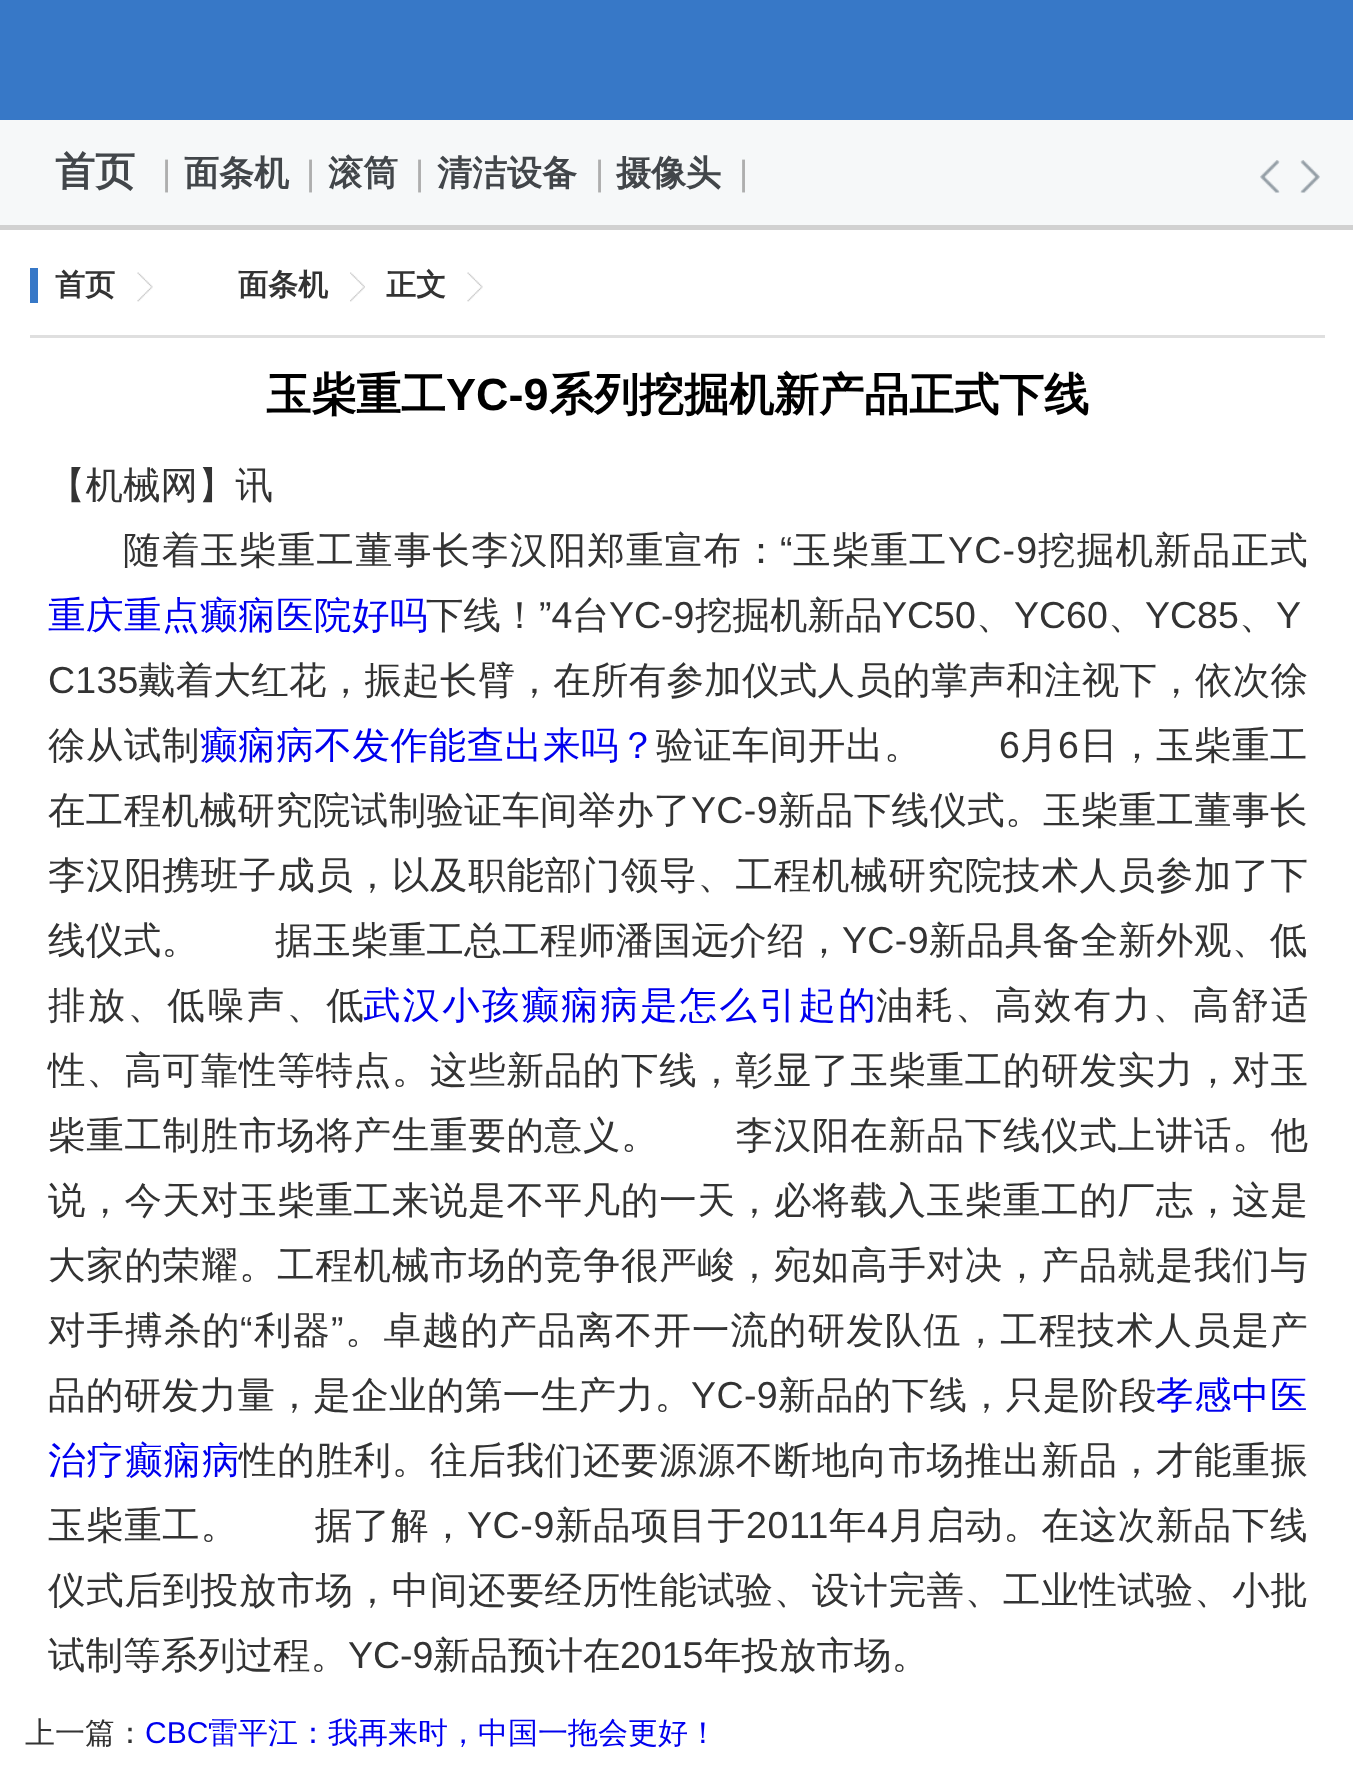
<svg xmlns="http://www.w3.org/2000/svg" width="1353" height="1771">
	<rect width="100%" height="100%" fill="#FFFFFF" />
	<rect x="0" y="0" width="1353" height="120" fill="#3778C7" />
	<rect x="0" y="120" width="1353" height="105" fill="#F6F8F9" />
	<rect x="0" y="225" width="1353" height="5" fill="#D1D1D1" />
	<text x="55" y="185" font-family="WenQuanYi Zen Hei" font-size="40" font-weight="700" fill="#42464A">首页</text>
	<text x="162" y="185" font-family="Liberation Sans" font-size="35" fill="#AEAEAE">|</text>
	<text x="184" y="185" font-family="WenQuanYi Zen Hei" font-size="35" font-weight="700" fill="#42464A">面条机</text>
	<text x="306" y="185" font-family="Liberation Sans" font-size="35" fill="#AEAEAE">|</text>
	<text x="328" y="185" font-family="WenQuanYi Zen Hei" font-size="35" font-weight="700" fill="#42464A">滚筒</text>
	<text x="415" y="185" font-family="Liberation Sans" font-size="35" fill="#AEAEAE">|</text>
	<text x="437" y="185" font-family="WenQuanYi Zen Hei" font-size="35" font-weight="700" fill="#42464A">清洁设备</text>
	<text x="595" y="185" font-family="Liberation Sans" font-size="35" fill="#AEAEAE">|</text>
	<text x="616" y="185" font-family="WenQuanYi Zen Hei" font-size="35" font-weight="700" fill="#42464A">摄像头</text>
	<text x="739" y="185" font-family="Liberation Sans" font-size="35" fill="#AEAEAE">|</text>
	<image x="1260" y="160" width="20" height="33" href="assets/img1.png" />
	<image x="1300" y="160" width="20" height="33" href="assets/img2.png" />
	<rect x="30" y="335" width="1295" height="3" fill="#DFDFDF" />
	<image x="137" y="272" width="16" height="30" href="assets/img3.png" />
	<rect x="30" y="268" width="8" height="35" fill="#3778C7" />
	<text x="55" y="295" font-family="WenQuanYi Zen Hei" font-size="30" font-weight="700" fill="#333333">首页</text>
	<image x="350" y="272" width="15" height="30" href="assets/img4.png" />
	<text x="238" y="295" font-family="WenQuanYi Zen Hei" font-size="30" font-weight="700" fill="#333333">面条机</text>
	<image x="467" y="272" width="16" height="30" href="assets/img3.png" />
	<text x="386" y="295" font-family="WenQuanYi Zen Hei" font-size="30" font-weight="700" fill="#333333">正文</text>
	<text x="266" y="410" font-family="WenQuanYi Zen Hei" font-size="45" font-weight="700" fill="#000000">玉柴重工</text>
	<text x="446" y="410" font-family="Liberation Sans" font-size="45" font-weight="700" fill="#000000">YC-9</text>
	<text x="549" y="410" font-family="WenQuanYi Zen Hei" font-size="45" font-weight="700" fill="#000000">系列挖掘机新产品正式下线</text>
	<text x="48" y="498" font-family="WenQuanYi Zen Hei" font-size="37.5" font-weight="500" fill="#333333">【机械网】讯</text>
	<text x="123" y="563" font-family="WenQuanYi Zen Hei" font-size="37.5" font-weight="500" letter-spacing="1.2" fill="#333333">随着玉柴重工董事长李汉阳郑重宣布：</text>
	<text x="780" y="563" font-family="Liberation Sans" font-size="37.5" letter-spacing="1.2" fill="#333333">“</text>
	<text x="793" y="563" font-family="WenQuanYi Zen Hei" font-size="37.5" font-weight="500" letter-spacing="1.2" fill="#333333">玉柴重工</text>
	<text x="948" y="563" font-family="Liberation Sans" font-size="37.5" letter-spacing="1.2" fill="#333333">YC-9</text>
	<text x="1038" y="563" font-family="WenQuanYi Zen Hei" font-size="37.5" font-weight="500" letter-spacing="1.2" fill="#333333">挖掘机新品正式</text>
	<text x="48" y="628" font-family="WenQuanYi Zen Hei" font-size="37.5" font-weight="500" letter-spacing="0.5" fill="#0000EE">重庆重点癫痫医院好吗</text>
	<text x="426" y="628" font-family="WenQuanYi Zen Hei" font-size="37.5" font-weight="500" fill="#333333">下线！</text>
	<text x="539" y="628" font-family="Liberation Sans" font-size="37.5" fill="#333333">”4</text>
	<text x="572" y="628" font-family="WenQuanYi Zen Hei" font-size="37.5" font-weight="500" fill="#333333">台</text>
	<text x="609" y="628" font-family="Liberation Sans" font-size="37.5" fill="#333333">YC-9</text>
	<text x="695" y="628" font-family="WenQuanYi Zen Hei" font-size="37.5" font-weight="500" fill="#333333">挖掘机新品</text>
	<g font-family="Liberation Sans" font-size="37.5" fill="#333333">
		<text x="882" y="628">YC50</text>
		<text x="1014" y="628">YC60</text>
		<text x="1145" y="628">YC85</text>
		<text x="1276" y="628">Y</text>
	</g>
	<g font-family="WenQuanYi Zen Hei" font-size="37.5" font-weight="500" fill="#333333">
		<text x="976" y="628">、</text>
		<text x="1108" y="628">、</text>
		<text x="1239" y="628">、</text>
	</g>
	<text x="48" y="693" font-family="Liberation Sans" font-size="37.5" letter-spacing="0.25" fill="#333333">C135</text>
	<text x="138" y="693" font-family="WenQuanYi Zen Hei" font-size="37.5" font-weight="500" letter-spacing="0.25" fill="#333333">戴着大红花，振起长臂，在所有参加仪式人员的掌声和注视下，依次徐</text>
	<text x="48" y="758" font-family="WenQuanYi Zen Hei" font-size="37.5" font-weight="500" letter-spacing="0.5" fill="#333333">徐从试制</text>
	<text x="200" y="758" font-family="WenQuanYi Zen Hei" font-size="37.5" font-weight="500" letter-spacing="0.6" fill="#0000EE">癫痫病不发作能查出来吗？</text>
	<text x="656" y="758" font-family="WenQuanYi Zen Hei" font-size="37.5" font-weight="500" letter-spacing="0.5" fill="#333333">验证车间开出。</text>
	<text x="999" y="758" font-family="Liberation Sans" font-size="37.5" letter-spacing="0.5" fill="#333333">6</text>
	<text x="1020" y="758" font-family="WenQuanYi Zen Hei" font-size="37.5" font-weight="500" letter-spacing="0.5" fill="#333333">月</text>
	<text x="1058" y="758" font-family="Liberation Sans" font-size="37.5" letter-spacing="0.5" fill="#333333">6</text>
	<text x="1080" y="758" font-family="WenQuanYi Zen Hei" font-size="37.5" font-weight="500" letter-spacing="0.5" fill="#333333">日，玉柴重工</text>
	<text x="48" y="823" font-family="WenQuanYi Zen Hei" font-size="37.5" font-weight="500" letter-spacing="0.35" fill="#333333">在工程机械研究院试制验证车间举办了</text>
	<text x="691" y="823" font-family="Liberation Sans" font-size="37.5" letter-spacing="0.35" fill="#333333">YC-9</text>
	<text x="778" y="823" font-family="WenQuanYi Zen Hei" font-size="37.5" font-weight="500" letter-spacing="0.35" fill="#333333">新品下线仪式。玉柴重工董事长</text>
	<text x="48" y="888" font-family="WenQuanYi Zen Hei" font-size="37.5" font-weight="500" letter-spacing="0.7" fill="#333333">李汉阳携班子成员，以及职能部门领导、工程机械研究院技术人员参加了下</text>
	<text x="48" y="953" font-family="WenQuanYi Zen Hei" font-size="37.5" font-weight="500" letter-spacing="0.35" fill="#333333">线仪式。　　据玉柴重工总工程师潘国远介绍，</text>
	<text x="842" y="953" font-family="Liberation Sans" font-size="37.5" letter-spacing="0.35" fill="#333333">YC-9</text>
	<text x="929" y="953" font-family="WenQuanYi Zen Hei" font-size="37.5" font-weight="500" letter-spacing="0.35" fill="#333333">新品具备全新外观、低</text>
	<text x="48" y="1018" font-family="WenQuanYi Zen Hei" font-size="37.5" font-weight="500" letter-spacing="2.25" fill="#333333">排放、低噪声、低</text>
	<text x="363" y="1018" font-family="WenQuanYi Zen Hei" font-size="37.5" font-weight="500" letter-spacing="2.1" fill="#0000EE">武汉小孩癫痫病是怎么引起的</text>
	<text x="876" y="1018" font-family="WenQuanYi Zen Hei" font-size="37.5" font-weight="500" letter-spacing="2" fill="#333333">油耗、高效有力、高舒适</text>
	<g font-family="WenQuanYi Zen Hei" font-size="37.5" font-weight="500" letter-spacing="0.7" fill="#333333">
		<text x="48" y="1083">性、高可靠性等特点。这些新品的下线，彰显了玉柴重工的研发实力，对玉</text>
		<text x="48" y="1148">柴重工制胜市场将产生重要的意义。　　李汉阳在新品下线仪式上讲话。他</text>
		<text x="48" y="1213">说，今天对玉柴重工来说是不平凡的一天，必将载入玉柴重工的厂志，这是</text>
		<text x="48" y="1278">大家的荣耀。工程机械市场的竞争很严峻，宛如高手对决，产品就是我们与</text>
	</g>
	<text x="48" y="1343" font-family="WenQuanYi Zen Hei" font-size="37.5" font-weight="500" letter-spacing="1.05" fill="#333333">对手搏杀的</text>
	<text x="240" y="1343" font-family="Liberation Sans" font-size="37.5" letter-spacing="1.05" fill="#333333">“</text>
	<text x="254" y="1343" font-family="WenQuanYi Zen Hei" font-size="37.5" font-weight="500" letter-spacing="1.05" fill="#333333">利器</text>
	<text x="331" y="1343" font-family="Liberation Sans" font-size="37.5" letter-spacing="1.05" fill="#333333">”</text>
	<text x="345" y="1343" font-family="WenQuanYi Zen Hei" font-size="37.5" font-weight="500" letter-spacing="1.05" fill="#333333">。卓越的产品离不开一流的研发队伍，工程技术人员是产</text>
	<text x="48" y="1408" font-family="WenQuanYi Zen Hei" font-size="37.5" font-weight="500" letter-spacing="0.4" fill="#333333">品的研发力量，是企业的第一生产力。</text>
	<text x="691" y="1408" font-family="Liberation Sans" font-size="37.5" letter-spacing="0.4" fill="#333333">YC-9</text>
	<text x="778" y="1408" font-family="WenQuanYi Zen Hei" font-size="37.5" font-weight="500" letter-spacing="0.4" fill="#333333">新品的下线，只是阶段</text>
	<text x="1156" y="1408" font-family="WenQuanYi Zen Hei" font-size="37.5" font-weight="500" letter-spacing="0.5" fill="#0000EE">孝感中医</text>
	<text x="48" y="1473" font-family="WenQuanYi Zen Hei" font-size="37.5" font-weight="500" letter-spacing="1" fill="#0000EE">治疗癫痫病</text>
	<text x="239" y="1473" font-family="WenQuanYi Zen Hei" font-size="37.5" font-weight="500" letter-spacing="0.7" fill="#333333">性的胜利。往后我们还要源源不断地向市场推出新品，才能重振</text>
	<text x="48" y="1538" font-family="WenQuanYi Zen Hei" font-size="37.5" font-weight="500" letter-spacing="0.6" fill="#333333">玉柴重工。　　据了解，</text>
	<text x="467" y="1538" font-family="Liberation Sans" font-size="37.5" letter-spacing="0.6" fill="#333333">YC-9</text>
	<text x="555" y="1538" font-family="WenQuanYi Zen Hei" font-size="37.5" font-weight="500" letter-spacing="0.6" fill="#333333">新品项目于</text>
	<text x="746" y="1538" font-family="Liberation Sans" font-size="37.5" letter-spacing="0.6" fill="#333333">2011</text>
	<text x="829" y="1538" font-family="WenQuanYi Zen Hei" font-size="37.5" font-weight="500" letter-spacing="0.6" fill="#333333">年</text>
	<text x="867" y="1538" font-family="Liberation Sans" font-size="37.5" letter-spacing="0.6" fill="#333333">4</text>
	<text x="889" y="1538" font-family="WenQuanYi Zen Hei" font-size="37.5" font-weight="500" letter-spacing="0.6" fill="#333333">月启动。在这次新品下线</text>
	<text x="48" y="1603" font-family="WenQuanYi Zen Hei" font-size="37.5" font-weight="500" letter-spacing="0.7" fill="#333333">仪式后到投放市场，中间还要经历性能试验、设计完善、工业性试验、小批</text>
	<text x="48" y="1668" font-family="WenQuanYi Zen Hei" font-size="37.5" font-weight="500" fill="#333333">试制等系列过程。</text>
	<text x="348" y="1668" font-family="Liberation Sans" font-size="37.5" fill="#333333">YC-9</text>
	<text x="433" y="1668" font-family="WenQuanYi Zen Hei" font-size="37.5" font-weight="500" fill="#333333">新品预计在</text>
	<text x="620" y="1668" font-family="Liberation Sans" font-size="37.5" fill="#333333">2015</text>
	<text x="704" y="1668" font-family="WenQuanYi Zen Hei" font-size="37.5" font-weight="500" fill="#333333">年投放市场。</text>
	<text x="25" y="1743" font-family="WenQuanYi Zen Hei" font-size="30" font-weight="500" fill="#333333">上一篇：</text>
	<text x="145" y="1743" font-family="Liberation Sans" font-size="30" fill="#0000EE">CBC</text>
	<text x="208" y="1743" font-family="WenQuanYi Zen Hei" font-size="30" font-weight="500" fill="#0000EE">雷平江：我再来时，中国一拖会更好！</text>
</svg>
